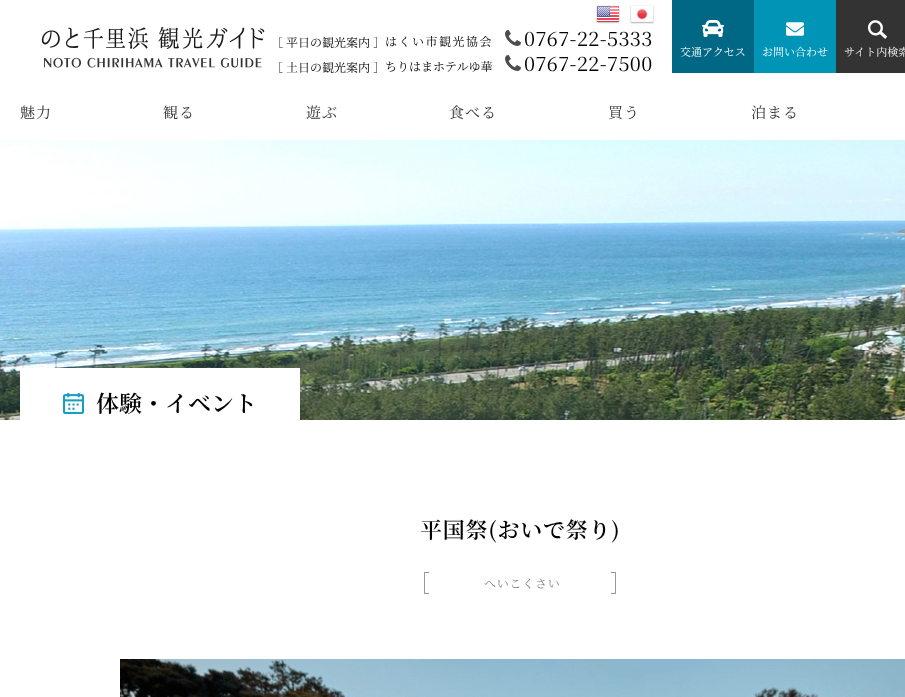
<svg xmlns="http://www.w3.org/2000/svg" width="905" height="697">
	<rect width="100%" height="100%" fill="#FFFFFF" />
	<image x="41" y="26" width="224" height="42" href="assets/img1.png" />
	<image x="596" y="5" width="24" height="19" href="assets/img2.png" />
	<image x="630" y="5" width="24" height="19" href="assets/img3.png" />
	<text x="271" y="47" font-family="Noto Serif JP" font-size="12" fill="#000000">［ 平日の観光案内 ］</text>
	<text x="385" y="46" font-family="Noto Serif JP" font-size="12" letter-spacing="1.5" fill="#000000">はくい市観光協会</text>
	<image x="505" y="30" width="16" height="16" href="assets/img4.png" />
	<text x="524" y="46" font-family="Noto Serif JP" font-size="20" letter-spacing="0.4" fill="#000000">0767-22-5333</text>
	<g font-family="Noto Serif JP" font-size="12" fill="#000000">
		<text x="271" y="72">［ 土日の観光案内 ］</text>
		<text x="385" y="71">ちりはまホテルゆ華</text>
	</g>
	<image x="505" y="55" width="16" height="16" href="assets/img4.png" />
	<text x="524" y="71" font-family="Noto Serif JP" font-size="20" letter-spacing="0.4" fill="#000000">0767-22-7500</text>
	<rect x="672" y="0" width="82" height="73" fill="#006885" />
	<image x="702" y="20" width="22" height="17" href="assets/img5.png" />
	<text x="680" y="56" font-family="Noto Serif JP" font-size="11" fill="#FFFFFF">交通アクセス</text>
	<rect x="754" y="0" width="82" height="73" fill="#0095B7" />
	<image x="786" y="22" width="18" height="14" href="assets/img6.png" />
	<text x="762" y="56" font-family="Noto Serif JP" font-size="11" fill="#FFFFFF">お問い合わせ</text>
	<rect x="836" y="0" width="69" height="73" fill="#333333" />
	<image x="868" y="20" width="19" height="19" href="assets/img7.png" />
	<text x="844" y="56" font-family="Noto Serif JP" font-size="11" fill="#FFFFFF">サイト内検索</text>
	<g font-family="Noto Serif JP" font-size="15" letter-spacing="1" fill="#333333">
		<text x="20" y="118">魅力</text>
		<text x="163" y="118">観る</text>
		<text x="306" y="118">遊ぶ</text>
		<text x="449" y="118">食べる</text>
		<text x="608" y="118">買う</text>
		<text x="751" y="118">泊まる</text>
	</g>
	<image x="0" y="140" width="905" height="280" href="assets/img8.png" />
	<rect x="20" y="368" width="280" height="52" fill="#FFFFFF" />
	<image x="63" y="393" width="21" height="21" href="assets/img9.png" />
	<text x="96" y="412" font-family="Noto Serif JP" font-size="23" font-weight="600" fill="#000000">体験・イベント</text>
	<text x="420" y="538" font-family="Noto Serif JP" font-size="22" font-weight="600" letter-spacing="0.75" fill="#000000">平国祭(おいで祭り)</text>
	<rect x="424" y="572" width="5" height="1" fill="#999999" />
	<rect x="424" y="593" width="5" height="1" fill="#999999" />
	<rect x="424" y="572" width="1" height="22" fill="#999999" />
	<text x="484" y="588" font-family="Noto Serif JP" font-size="12" letter-spacing="0.75" fill="#808080">へいこくさい</text>
	<rect x="611" y="572" width="5" height="1" fill="#999999" />
	<rect x="615" y="572" width="1" height="22" fill="#999999" />
	<rect x="611" y="593" width="5" height="1" fill="#999999" />
	<image x="120" y="659" width="785" height="38" href="assets/img10.png" />
</svg>
